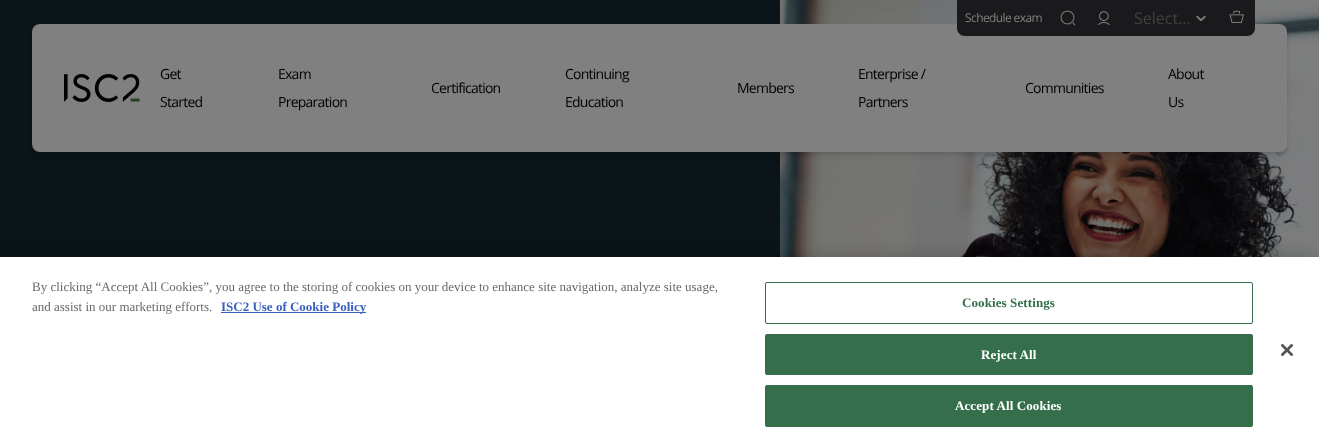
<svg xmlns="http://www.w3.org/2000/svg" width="1319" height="447">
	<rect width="100%" height="100%" fill="#0B1519" />
	<image x="780" y="0" width="539" height="257" href="assets/img1.png" />
	<rect x="34" y="28" width="1251" height="124" rx="6" fill="#000000" fill-opacity="0.1" filter="blur(2px)" />
	<rect x="33" y="29" width="1253" height="126" rx="7" fill="#000000" fill-opacity="0.1" filter="blur(3px)" />
	<rect x="32" y="24" width="1255" height="128" rx="8" fill="#808080" />
	<path d="M957 0H1255V28C1255 32.5 1251.5 36 1247 36H965C960.5 36 957 32.5 957 28Z" fill="#1A1A1D" />
	<text x="965" y="22" font-family="Open Sans" font-size="12" letter-spacing="-0.6" fill="#808080">Schedule exam</text>
	<image x="1060" y="10" width="16" height="16" href="assets/img2.png" />
	<image x="1097" y="11" width="14" height="14" href="assets/img3.png" />
	<text x="1134" y="24" font-family="Open Sans" font-size="16" fill="#404040">Select...</text>
	<image x="1196" y="15" width="10" height="7" href="assets/img4.png" />
	<image x="1229" y="10" width="15" height="13" href="assets/img5.png" />
	<image x="64" y="74" width="76" height="28" href="assets/img6.png" />
	<g font-family="Open Sans" font-size="14" letter-spacing="-0.75" fill="#000000">
		<text x="160" y="79">Get</text>
		<text x="160" y="107">Started</text>
		<text x="278" y="79">Exam</text>
		<text x="278" y="107">Preparation</text>
		<text x="431" y="93">Certification</text>
		<text x="565" y="79">Continuing</text>
		<text x="565" y="107">Education</text>
		<text x="737" y="93">Members</text>
		<text x="858" y="79">Enterprise /</text>
		<text x="858" y="107">Partners</text>
		<text x="1025" y="93">Communities</text>
		<text x="1168" y="79">About</text>
		<text x="1168" y="107">Us</text>
	</g>
	<rect x="0" y="257" width="1319" height="190" fill="#000000" fill-opacity="0.2" filter="blur(9px)" />
	<rect x="0" y="257" width="1319" height="190" fill="#FFFFFF" />
	<g font-family="Liberation Serif" font-size="13" fill="#696969">
		<text x="32" y="291">By clicking “Accept All Cookies”, you agree to the storing of cookies on your device to enhance site navigation, analyze site usage,</text>
		<text x="32" y="311">and assist in our marketing efforts.</text>
	</g>
	<rect x="221" y="312" width="145" height="1" fill="#3860BE" />
	<text x="221" y="311" font-family="Liberation Serif" font-size="13" font-weight="700" fill="#3860BE">ISC2 Use of Cookie Policy</text>
	<rect x="765.5" y="282.5" width="487" height="41" rx="1.5" fill="none" stroke="#346E4A" />
	<text x="962" y="307" font-family="Liberation Serif" font-size="13" font-weight="700" letter-spacing="0.1" fill="#346E4A">Cookies Settings</text>
	<rect x="765.5" y="334.5" width="487" height="40" rx="1.5" fill="#346E4A" stroke="#346E4A" />
	<text x="981" y="359" font-family="Liberation Serif" font-size="13" font-weight="700" letter-spacing="0.1" fill="#FFFFFF">Reject All</text>
	<rect x="765.5" y="385.5" width="487" height="41" rx="1.5" fill="#346E4A" stroke="#346E4A" />
	<text x="955" y="410" font-family="Liberation Serif" font-size="13" font-weight="700" letter-spacing="0.1" fill="#FFFFFF">Accept All Cookies</text>
	<image x="1281" y="344" width="12" height="12" href="assets/img7.png" />
</svg>
